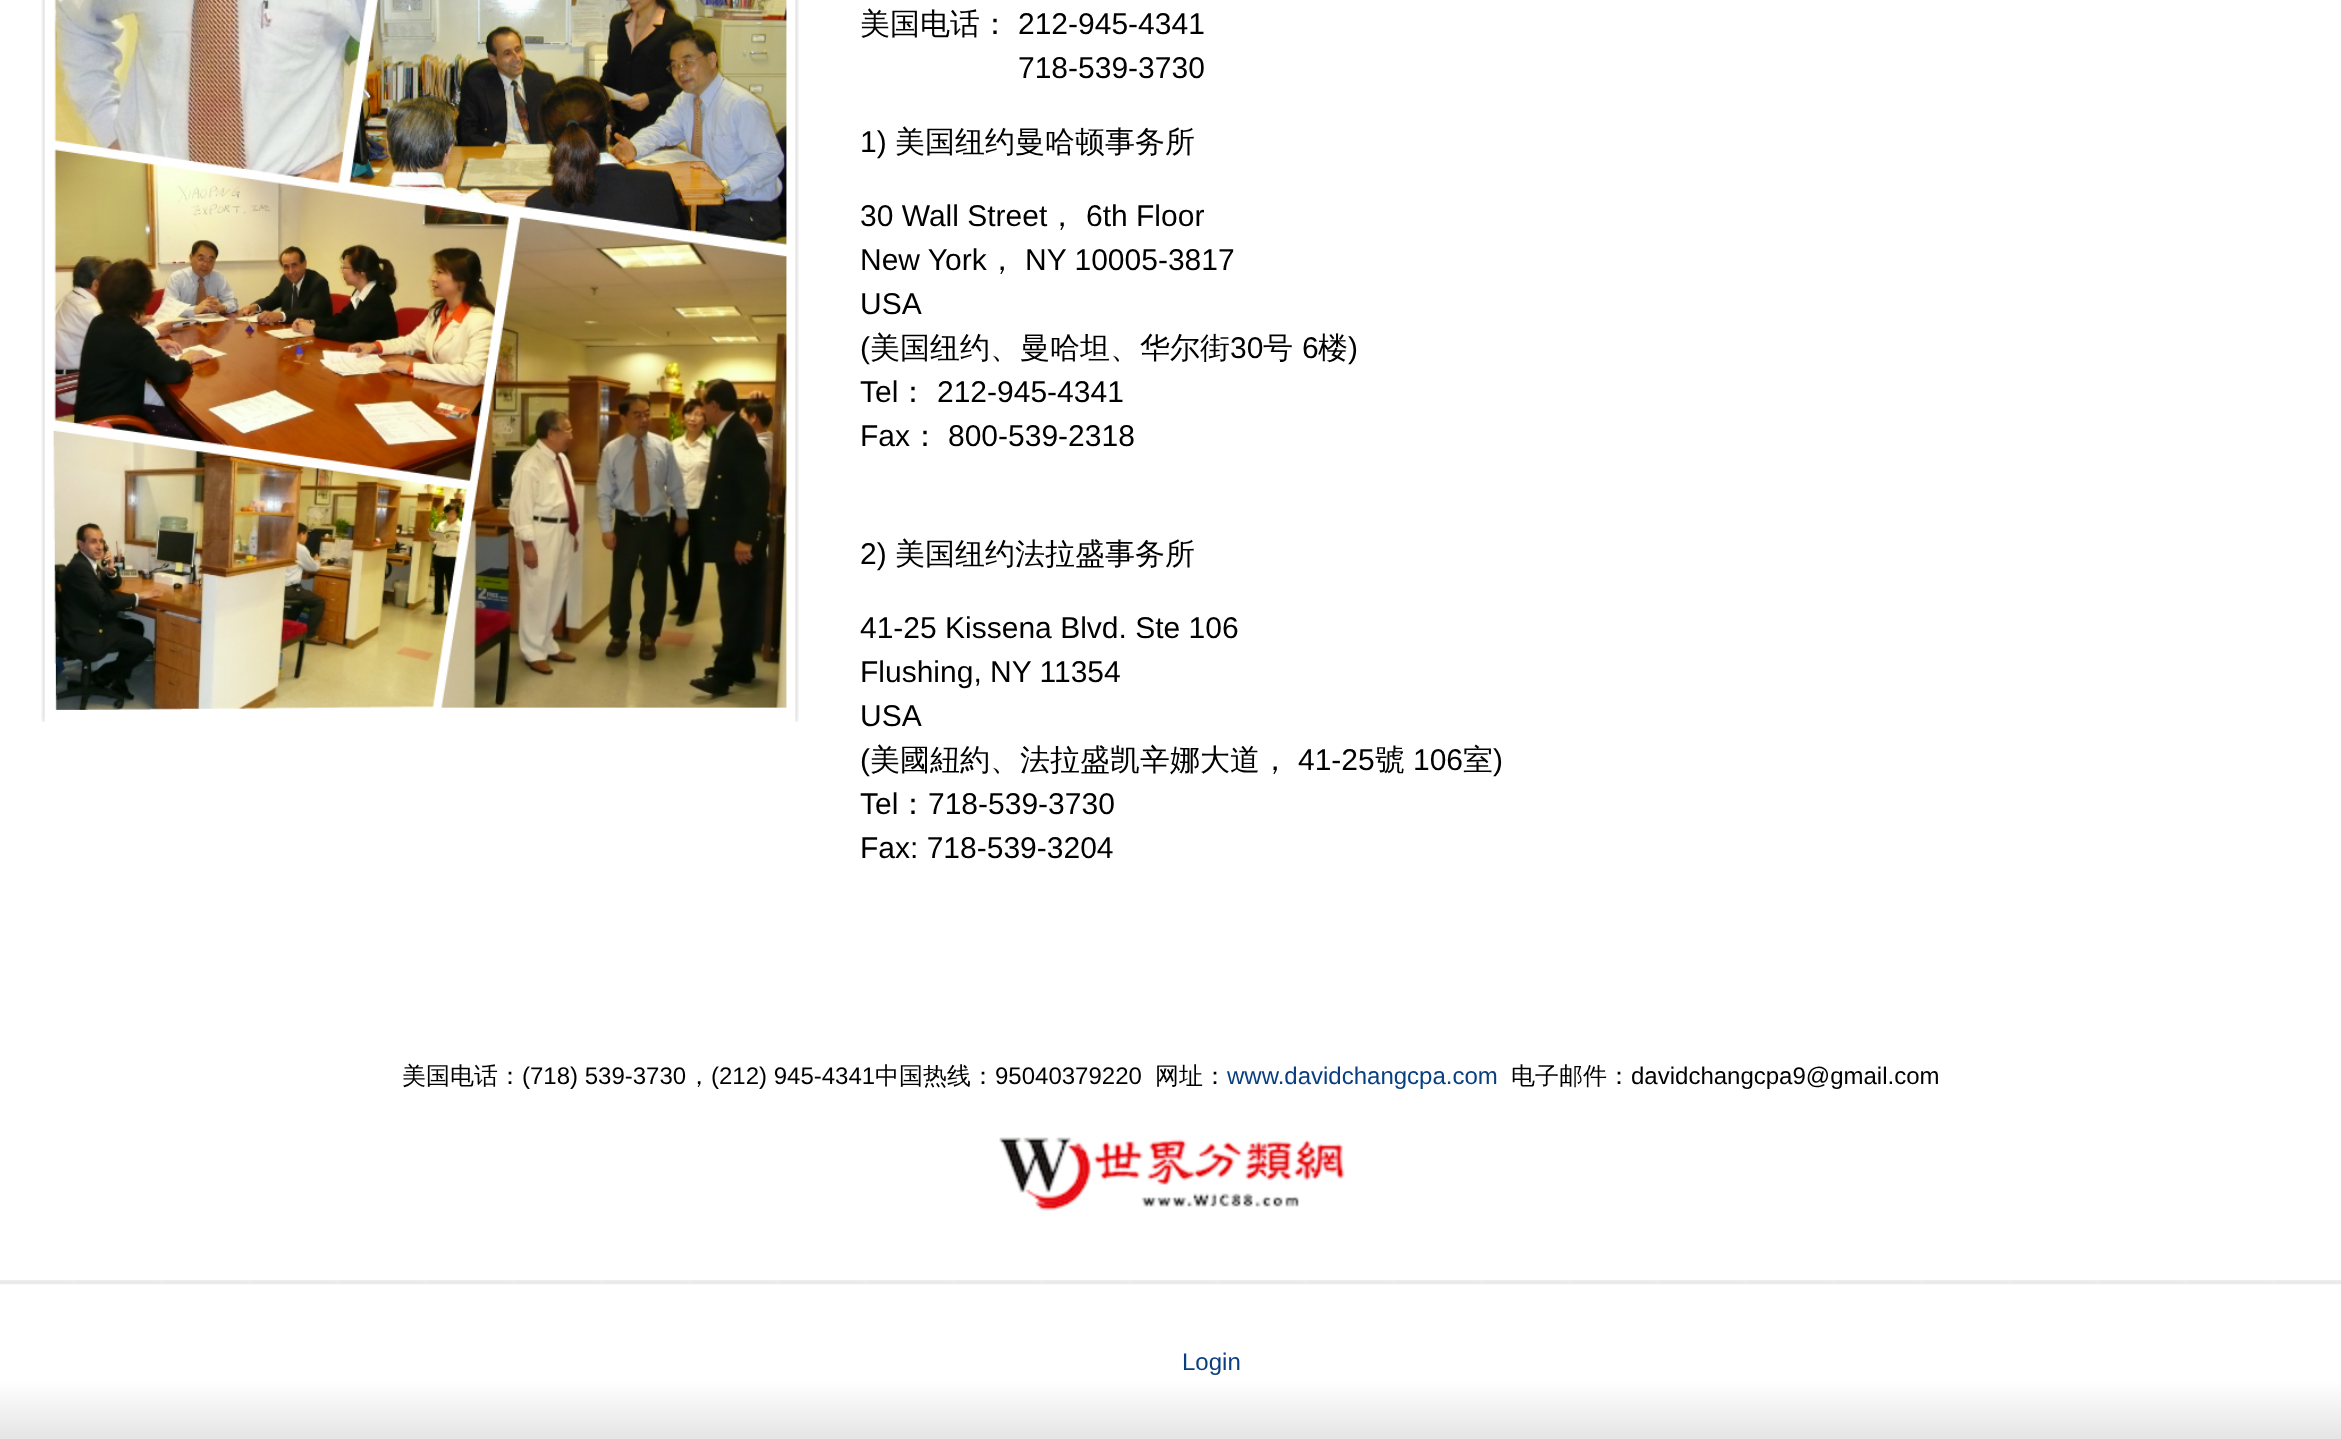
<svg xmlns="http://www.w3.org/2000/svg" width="2341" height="1439">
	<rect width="100%" height="100%" fill="#FFFFFF" />
	<image x="41" y="0" width="758" height="722" href="assets/img1.png" />
	<text x="860" y="34" font-family="WenQuanYi Zen Hei" font-size="30" font-weight="500" fill="#000000">美国电话：</text>
	<g font-family="Liberation Sans" font-size="30" fill="#000000">
		<text x="1018" y="34">212-945-4341</text>
		<text x="1018" y="78">718-539-3730</text>
		<text x="860" y="152">1)</text>
	</g>
	<text x="895" y="152" font-family="WenQuanYi Zen Hei" font-size="30" font-weight="500" fill="#000000">美国纽约曼哈顿事务所</text>
	<text x="860" y="226" font-family="Liberation Sans" font-size="30" fill="#000000">30 Wall Street</text>
	<text x="1047" y="226" font-family="WenQuanYi Zen Hei" font-size="30" font-weight="500" fill="#000000">，</text>
	<g font-family="Liberation Sans" font-size="30" fill="#000000">
		<text x="1086" y="226">6th Floor</text>
		<text x="860" y="270">New York</text>
	</g>
	<text x="987" y="270" font-family="WenQuanYi Zen Hei" font-size="30" font-weight="500" fill="#000000">，</text>
	<g font-family="Liberation Sans" font-size="30" fill="#000000">
		<text x="1025" y="270">NY 10005-3817</text>
		<text x="860" y="314">USA</text>
		<text x="860" y="358">(</text>
	</g>
	<text x="870" y="358" font-family="WenQuanYi Zen Hei" font-size="30" font-weight="500" fill="#000000">美国纽约、曼哈坦、华尔街</text>
	<text x="1230" y="358" font-family="Liberation Sans" font-size="30" fill="#000000">30</text>
	<text x="1263" y="358" font-family="WenQuanYi Zen Hei" font-size="30" font-weight="500" fill="#000000">号</text>
	<text x="1302" y="358" font-family="Liberation Sans" font-size="30" fill="#000000">6</text>
	<text x="1318" y="358" font-family="WenQuanYi Zen Hei" font-size="30" font-weight="500" fill="#000000">楼</text>
	<g font-family="Liberation Sans" font-size="30" fill="#000000">
		<text x="1348" y="358">)</text>
		<text x="860" y="402">Tel</text>
	</g>
	<text x="898" y="402" font-family="WenQuanYi Zen Hei" font-size="30" font-weight="500" fill="#000000">：</text>
	<g font-family="Liberation Sans" font-size="30" fill="#000000">
		<text x="937" y="402">212-945-4341</text>
		<text x="860" y="446">Fax</text>
	</g>
	<text x="910" y="446" font-family="WenQuanYi Zen Hei" font-size="30" font-weight="500" fill="#000000">：</text>
	<g font-family="Liberation Sans" font-size="30" fill="#000000">
		<text x="948" y="446">800-539-2318</text>
		<text x="860" y="564">2)</text>
	</g>
	<text x="895" y="564" font-family="WenQuanYi Zen Hei" font-size="30" font-weight="500" fill="#000000">美国纽约法拉盛事务所</text>
	<g font-family="Liberation Sans" font-size="30" fill="#000000">
		<text x="860" y="638">41-25 Kissena Blvd. Ste 106</text>
		<text x="860" y="682">Flushing, NY 11354</text>
		<text x="860" y="726">USA</text>
		<text x="860" y="770">(</text>
	</g>
	<text x="870" y="770" font-family="WenQuanYi Zen Hei" font-size="30" font-weight="500" fill="#000000">美國紐約、法拉盛凯辛娜大道，</text>
	<text x="1298" y="770" font-family="Liberation Sans" font-size="30" fill="#000000">41-25</text>
	<text x="1375" y="770" font-family="WenQuanYi Zen Hei" font-size="30" font-weight="500" fill="#000000">號</text>
	<text x="1413" y="770" font-family="Liberation Sans" font-size="30" fill="#000000">106</text>
	<text x="1463" y="770" font-family="WenQuanYi Zen Hei" font-size="30" font-weight="500" fill="#000000">室</text>
	<g font-family="Liberation Sans" font-size="30" fill="#000000">
		<text x="1493" y="770">)</text>
		<text x="860" y="814">Tel</text>
	</g>
	<text x="898" y="814" font-family="WenQuanYi Zen Hei" font-size="30" font-weight="500" fill="#000000">：</text>
	<g font-family="Liberation Sans" font-size="30" fill="#000000">
		<text x="928" y="814">718-539-3730</text>
		<text x="860" y="858">Fax: 718-539-3204</text>
	</g>
	<image x="0" y="1280" width="2341" height="159" href="assets/img2.png" />
	<text x="402" y="1084" font-family="WenQuanYi Zen Hei" font-size="24" font-weight="500" fill="#000000">美国电话：</text>
	<text x="522" y="1084" font-family="Liberation Sans" font-size="24" fill="#000000">(718) 539-3730</text>
	<text x="687" y="1084" font-family="WenQuanYi Zen Hei" font-size="24" font-weight="500" fill="#000000">，</text>
	<text x="711" y="1084" font-family="Liberation Sans" font-size="24" fill="#000000">(212) 945-4341</text>
	<text x="875" y="1084" font-family="WenQuanYi Zen Hei" font-size="24" font-weight="500" fill="#000000">中国热线：</text>
	<text x="995" y="1084" font-family="Liberation Sans" font-size="24" fill="#000000">95040379220</text>
	<text x="1155" y="1084" font-family="WenQuanYi Zen Hei" font-size="24" font-weight="500" fill="#000000">网址：</text>
	<text x="1227" y="1084" font-family="Liberation Sans" font-size="24" fill="#093F80">www.davidchangcpa.com</text>
	<text x="1511" y="1084" font-family="WenQuanYi Zen Hei" font-size="24" font-weight="500" fill="#000000">电子邮件：</text>
	<text x="1631" y="1084" font-family="Liberation Sans" font-size="24" fill="#000000">davidchangcpa9@gmail.com</text>
	<image x="999" y="1137" width="346" height="74" href="assets/img3.png" />
	<text x="1182" y="1370" font-family="Liberation Sans" font-size="24" fill="#093F80">Login</text>
</svg>
